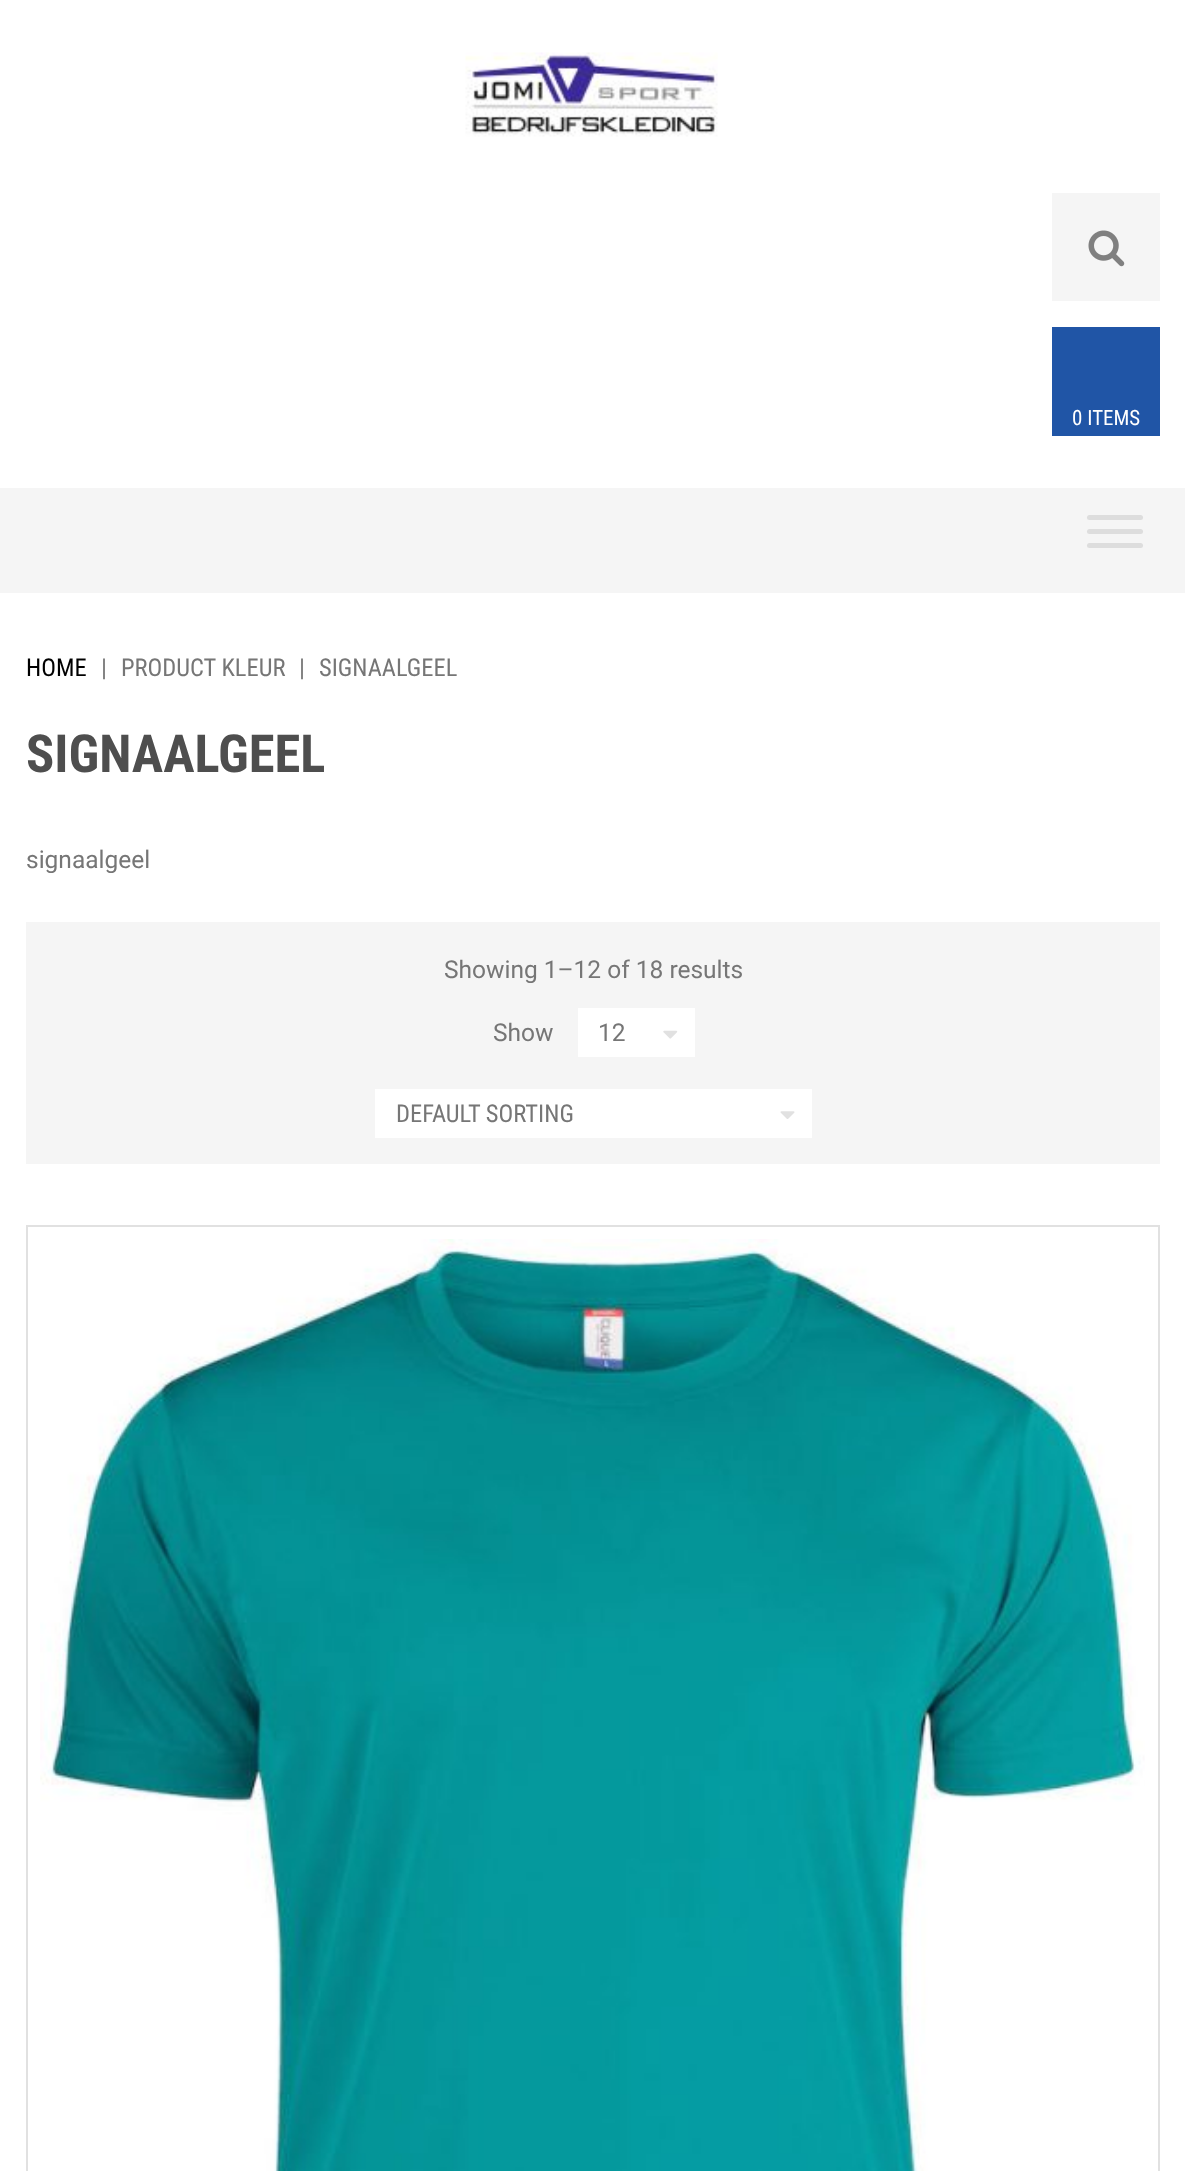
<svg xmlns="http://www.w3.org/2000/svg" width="1185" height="2171">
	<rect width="100%" height="100%" fill="#FFFFFF" />
	<image x="465" y="52" width="253" height="85" href="assets/img1.png" />
	<rect x="1052" y="193" width="108" height="108" fill="#F5F5F5" />
	<image x="1088" y="230" width="37" height="37" href="assets/img2.png" />
	<rect x="1052" y="327" width="108" height="109" fill="#2055A6" />
	<text x="1072" y="425" font-family="Roboto Condensed" font-size="21" fill="#FFFFFF">0 ITEMS</text>
	<rect x="0" y="488" width="1185" height="105" fill="#F5F5F5" />
	<rect x="1087" y="515" width="56" height="5" rx="2.5" fill="#DDDDDD" />
	<rect x="1087" y="529" width="56" height="5" rx="2.5" fill="#DDDDDD" />
	<rect x="1087" y="543" width="56" height="5" rx="2.5" fill="#DDDDDD" />
	<text x="26" y="676" font-family="Roboto Condensed" font-size="24.5" fill="#000000">HOME</text>
	<g font-family="Roboto Condensed" font-size="24.5" fill="#767676">
		<text x="101" y="676">|</text>
		<text x="121" y="676">PRODUCT KLEUR</text>
		<text x="299" y="676">|</text>
		<text x="319" y="676">SIGNAALGEEL</text>
	</g>
	<text x="26" y="772" font-family="Roboto Condensed" font-size="52.5" font-weight="700" fill="#4E4E4E">SIGNAALGEEL</text>
	<text x="26" y="868" font-family="Roboto" font-size="24.5" fill="#767676">signaalgeel</text>
	<rect x="26" y="922" width="1134" height="242" fill="#F5F5F5" />
	<g font-family="Roboto" font-size="24.5" fill="#767676">
		<text x="444" y="978">Showing 1–12 of 18 results</text>
		<text x="493" y="1041">Show</text>
	</g>
	<rect x="578" y="1008" width="117" height="49" fill="#FFFFFF" />
	<text x="598" y="1041" font-family="Roboto" font-size="24.5" fill="#767676">12</text>
	<image x="663" y="1030" width="15" height="9" href="assets/img3.png" />
	<rect x="375" y="1089" width="437" height="49" fill="#FFFFFF" />
	<text x="396" y="1122" font-family="Roboto Condensed" font-size="24.5" fill="#767676">DEFAULT SORTING</text>
	<image x="780" y="1111" width="15" height="8" href="assets/img4.png" />
	<rect x="27" y="1226" width="1132" height="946" fill="none" stroke="#E1E1E1" stroke-width="2" />
	<image x="40" y="1239" width="1105" height="932" href="assets/img5.png" />
</svg>
